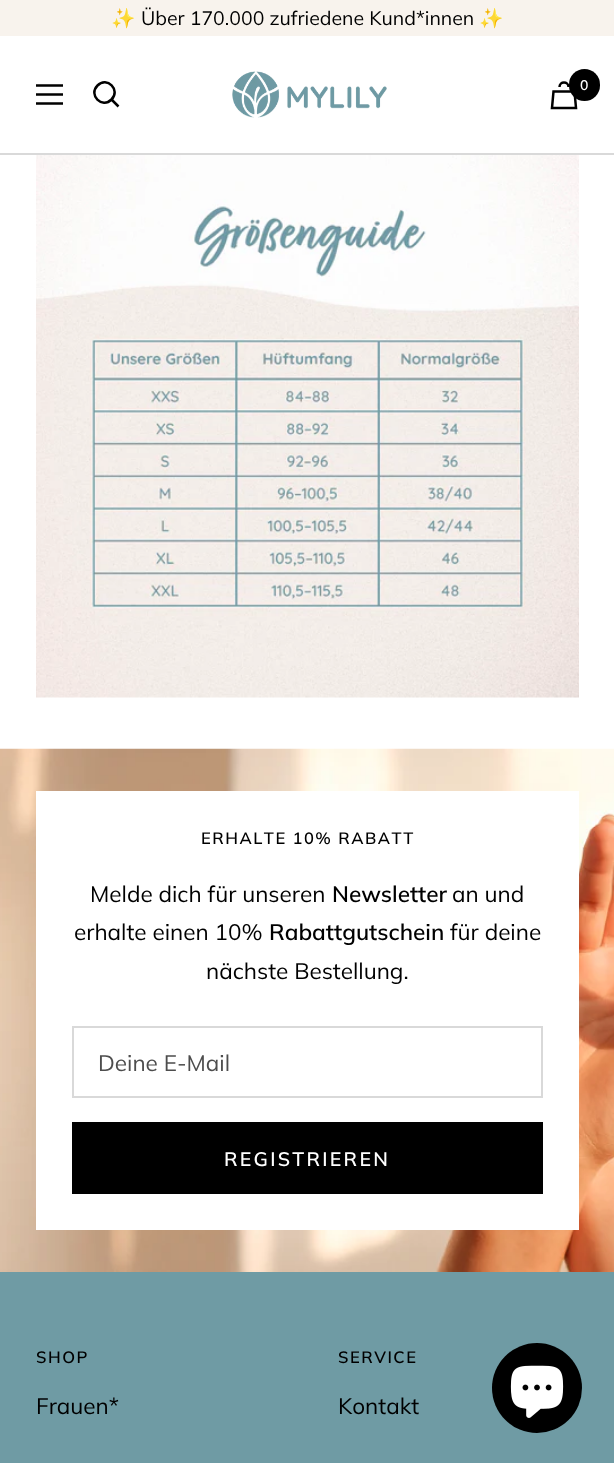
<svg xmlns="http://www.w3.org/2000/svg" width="614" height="1463">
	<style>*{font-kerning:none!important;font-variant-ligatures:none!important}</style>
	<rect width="100%" height="100%" fill="#FFFFFF" />
	<rect x="0" y="0" width="614" height="36" fill="#F8F3ED" />
	<text x="111" y="25" font-family="Noto Color Emoji" font-size="19.5" fill="#000000">✨</text>
	<text x="141" y="25" font-family="Muli" font-size="19.5" fill="#000000">Über 170.000 zufriedene Kund*innen</text>
	<text x="479" y="25" font-family="Noto Color Emoji" font-size="19.5" fill="#000000">✨</text>
	<rect x="0" y="153" width="614" height="2" fill="#D9D9D9" />
	<path d="M36 85.5H63M36 103.5H63ZM36 94.5H63Z" fill="none" stroke="#000000" stroke-width="2.5" />
	<path d="M111.5 99.5C121 90 107 76 97.5 85.5C88 95 102 109 111.5 99.5ZM111.5 99.5L118.5 106.5" fill="none" stroke="#000000" stroke-width="2.5" />
	<image x="232" y="71" width="155" height="47" href="assets/img1.png" />
	<path d="M553.5 91.5H574.5L576 108H552ZM568.5 87C568.5 81 559.5 81 559.5 87" fill="none" stroke="#000000" stroke-width="2.5" />
	<rect x="569" y="69" width="31" height="32" rx="15.5" fill="#000000" />
	<text x="580" y="90" font-family="Muli" font-size="14" font-weight="600" fill="#FFFFFF">0</text>
	<image x="36" y="155" width="543" height="543" href="assets/img2.png" />
	<image x="0" y="748" width="614" height="524" href="assets/img3.png" />
	<rect x="36" y="791" width="543" height="439" fill="#FFFFFF" />
	<text x="201" y="844" font-family="Muli" font-size="16.5" font-weight="600" letter-spacing="1.5" fill="#000000">ERHALTE 10% RABATT</text>
	<text x="90" y="902" font-family="Muli" font-size="22.5" fill="#000000">Melde dich für unseren</text>
	<text x="332" y="902" font-family="Muli" font-size="22.5" font-weight="600" fill="#000000">Newsletter</text>
	<g font-family="Muli" font-size="22.5" fill="#000000">
		<text x="452" y="902">an und</text>
		<text x="74" y="940">erhalte einen 10%</text>
	</g>
	<text x="269" y="940" font-family="Muli" font-size="22.5" font-weight="600" fill="#000000">Rabattgutschein</text>
	<g font-family="Muli" font-size="22.5" fill="#000000">
		<text x="450" y="940">für deine</text>
		<text x="206" y="979">nächste Bestellung.</text>
	</g>
	<rect x="73" y="1027" width="469" height="70" fill="none" stroke="#D9D9D9" stroke-width="2" />
	<text x="98" y="1071" font-family="Muli" font-size="22.5" fill="#4D4D4D">Deine E-Mail</text>
	<rect x="72" y="1122" width="471" height="72" fill="#000000" />
	<text x="224" y="1166" font-family="Muli" font-size="19.5" font-weight="600" letter-spacing="2.25" fill="#FFFFFF">REGISTRIEREN</text>
	<rect x="0" y="1272" width="614" height="191" fill="#6F9BA4" />
	<text x="36" y="1363" font-family="Muli" font-size="16.5" font-weight="600" letter-spacing="1.5" fill="#000000">SHOP</text>
	<text x="36" y="1414" font-family="Muli" font-size="22.5" fill="#000000">Frauen*</text>
	<text x="338" y="1363" font-family="Muli" font-size="16.5" font-weight="600" letter-spacing="1.5" fill="#000000">SERVICE</text>
	<text x="338" y="1414" font-family="Muli" font-size="22.5" fill="#000000">Kontakt</text>
	<circle cx="537" cy="1388" r="45" fill="#000000" />
	<image x="510" y="1365" width="54" height="53" href="assets/img4.png" />
</svg>
